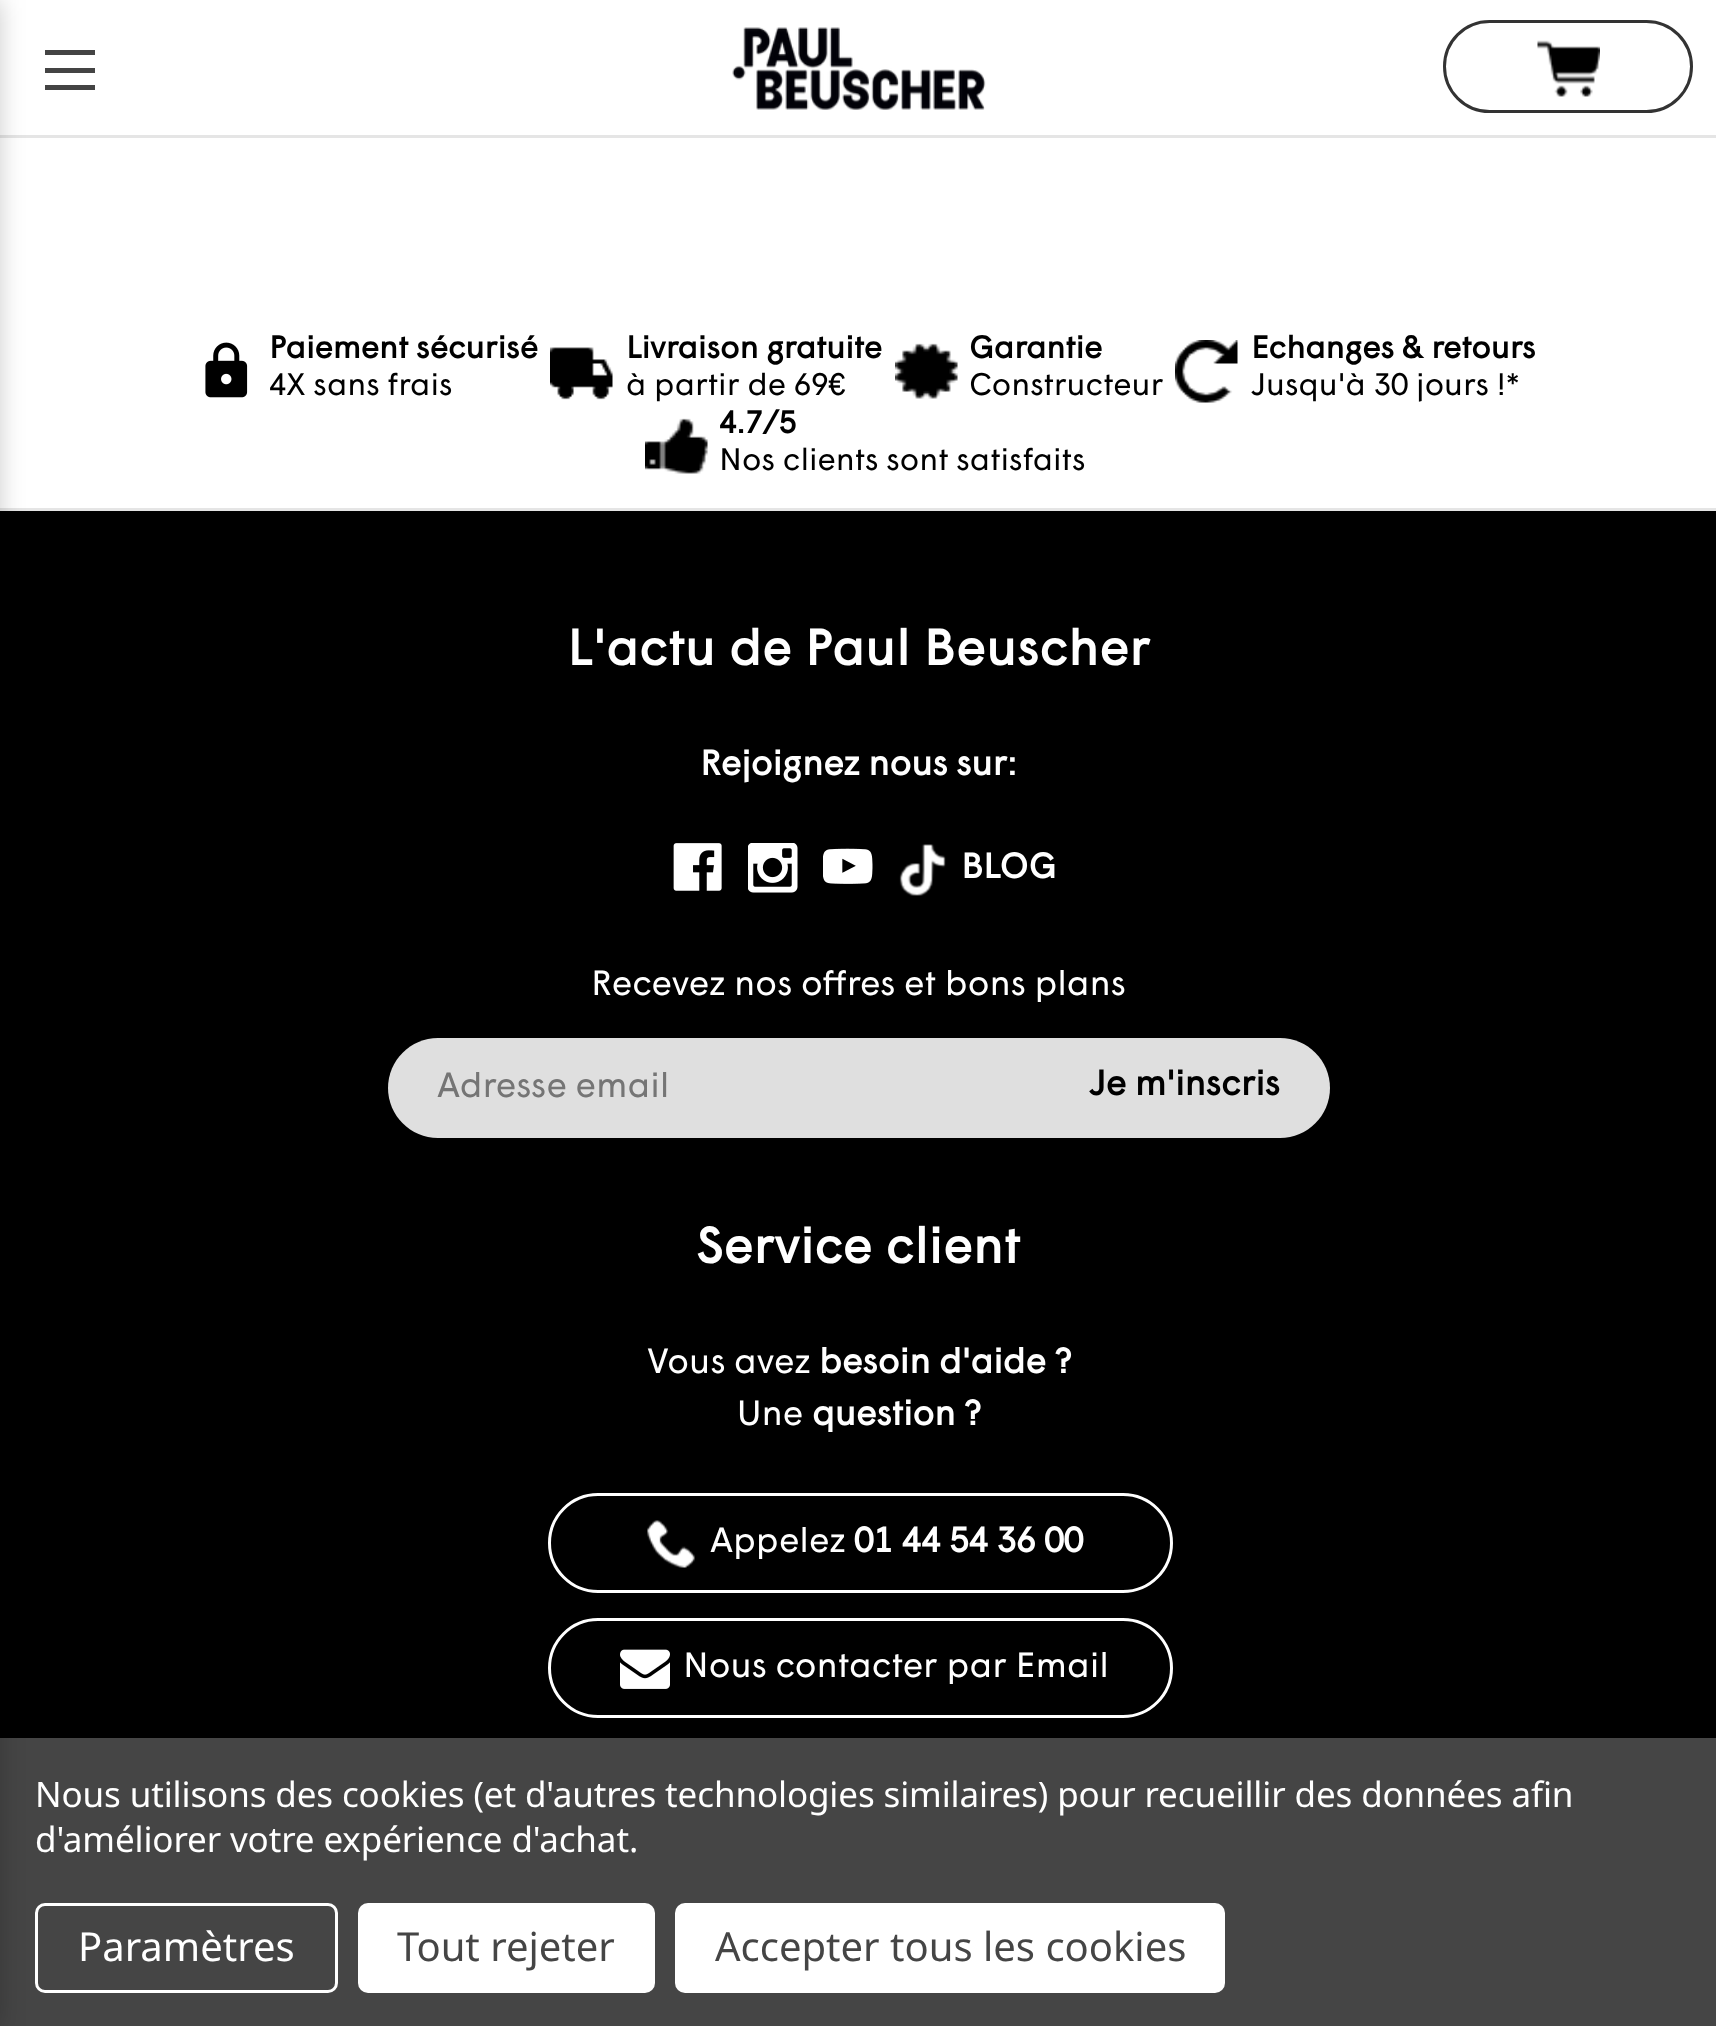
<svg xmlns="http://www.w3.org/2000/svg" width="1716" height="2026">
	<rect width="100%" height="100%" fill="#FFFFFF" />
	<rect x="0" y="135" width="1716" height="3" fill="#E5E5E5" />
	<rect x="0" y="511" width="1716" height="1227" fill="#000000" />
	<rect x="0" y="508" width="1716" height="3" fill="#E5E5E5" />
	<rect x="0" y="1738" width="1716" height="288" fill="#454545" />
	<rect x="36.5" y="1904.5" width="300" height="87" rx="8.5" fill="none" stroke="#FFFFFF" stroke-width="3" />
	<rect x="-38" y="0" width="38" height="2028" fill="#000000" fill-opacity="0.2" filter="blur(12.5px)" />
	<rect x="45" y="68" width="50" height="5" fill="#444444" />
	<rect x="45" y="50" width="50" height="5" fill="#444444" />
	<rect x="45" y="85" width="50" height="5" fill="#444444" />
	<image x="732" y="27" width="254" height="83" href="assets/img1.png" />
	<rect x="1444.5" y="21.5" width="247" height="90" rx="45" fill="none" stroke="#333333" stroke-width="3" />
	<image x="1537" y="40" width="63" height="57" href="assets/img2.png" />
	<image x="205" y="342" width="43" height="56" href="assets/img3.png" />
	<text x="269" y="358" font-family="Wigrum" font-size="31.25" font-weight="700" fill="#000000">Paiement sécurisé</text>
	<text x="269" y="395" font-family="Wigrum" font-size="31.25" fill="#000000">4X sans frais</text>
	<image x="550" y="347" width="63" height="53" href="assets/img4.png" />
	<text x="626" y="358" font-family="Wigrum" font-size="31.25" font-weight="700" fill="#000000">Livraison gratuite</text>
	<text x="626" y="395" font-family="Wigrum" font-size="31.25" fill="#000000">à partir de 69€</text>
	<image x="895" y="343" width="63" height="56" href="assets/img5.png" />
	<text x="969" y="358" font-family="Wigrum" font-size="31.25" font-weight="700" fill="#000000">Garantie</text>
	<text x="969" y="395" font-family="Wigrum" font-size="31.25" fill="#000000">Constructeur</text>
	<image x="1175" y="340" width="63" height="63" href="assets/img6.png" />
	<text x="1251" y="358" font-family="Wigrum" font-size="31.25" font-weight="700" fill="#000000">Echanges &amp; retours</text>
	<text x="1251" y="395" font-family="Wigrum" font-size="31.25" fill="#000000">Jusqu'à 30 jours !*</text>
	<image x="645" y="418" width="63" height="56" href="assets/img7.png" />
	<text x="719" y="433" font-family="Wigrum" font-size="31.25" font-weight="700" fill="#000000">4.7/5</text>
	<text x="719" y="470" font-family="Wigrum" font-size="31.25" fill="#000000">Nos clients sont satisfaits</text>
	<text x="567" y="665" font-family="Wigrum" font-size="50" font-weight="700" letter-spacing="0.6" fill="#FFFFFF">L'actu de Paul Beuscher</text>
	<text x="700" y="775" font-family="Wigrum" font-size="35" font-weight="700" fill="#FFFFFF">Rejoignez nous sur:</text>
	<image x="673" y="843" width="49" height="48" href="assets/img8.png" />
	<image x="748" y="843" width="50" height="50" href="assets/img9.png" />
	<image x="823" y="848" width="50" height="36" href="assets/img10.png" />
	<image x="899" y="844" width="47" height="52" href="assets/img11.png" />
	<text x="961" y="878" font-family="Wigrum" font-size="35" font-weight="700" fill="#FFFFFF">BLOG</text>
	<text x="591" y="995" font-family="Wigrum" font-size="35" fill="#FFFFFF">Recevez nos offres et bons plans</text>
	<path d="M438 1038H1075V1138H438C410.5 1138 388 1115.5 388 1088C388 1060.5 410.5 1038 438 1038Z" fill="#DFDFDF" />
	<text x="437" y="1097" font-family="Wigrum" font-size="35" fill="#757575">Adresse email</text>
	<path d="M1075 1038H1280C1307.5 1038 1330 1060.5 1330 1088C1330 1115.5 1307.5 1138 1280 1138H1075Z" fill="#DFDFDF" />
	<text x="1089" y="1095" font-family="Wigrum" font-size="35" font-weight="700" fill="#000000">Je m'inscris</text>
	<text x="696" y="1263" font-family="Wigrum" font-size="50" font-weight="700" letter-spacing="0.6" fill="#FFFFFF">Service client</text>
	<text x="647" y="1373" font-family="Wigrum" font-size="35" fill="#FFFFFF">Vous avez</text>
	<text x="819" y="1373" font-family="Wigrum" font-size="35" font-weight="700" fill="#FFFFFF">besoin d'aide ?</text>
	<text x="737" y="1425" font-family="Wigrum" font-size="35" fill="#FFFFFF">Une</text>
	<text x="812" y="1425" font-family="Wigrum" font-size="35" font-weight="700" fill="#FFFFFF">question ?</text>
	<rect x="549.5" y="1494.5" width="622" height="97" rx="48.5" fill="none" stroke="#FFFFFF" stroke-width="3" />
	<image x="647" y="1520" width="48" height="48" href="assets/img12.png" />
	<text x="710" y="1552" font-family="Wigrum" font-size="35" fill="#FFFFFF">Appelez</text>
	<text x="854" y="1552" font-family="Wigrum" font-size="35" font-weight="700" fill="#FFFFFF">01 44 54 36 00</text>
	<rect x="549.5" y="1619.5" width="622" height="97" rx="48.5" fill="none" stroke="#FFFFFF" stroke-width="3" />
	<image x="620" y="1649" width="50" height="40" href="assets/img13.png" />
	<text x="683" y="1677" font-family="Wigrum" font-size="35" fill="#FFFFFF">Nous contacter par Email</text>
	<g font-family="Noto Sans" font-size="35" letter-spacing="-0.12" fill="#FFFFFF">
		<text x="35" y="1807">Nous utilisons des cookies (et d'autres technologies similaires) pour recueillir des données afin</text>
		<text x="35" y="1852">d'améliorer votre expérience d'achat.</text>
	</g>
	<text x="78" y="1961" font-family="Noto Sans" font-size="40" fill="#FFFFFF">Paramètres</text>
	<rect x="358" y="1903" width="297" height="90" rx="10" fill="#FFFFFF" />
	<text x="397" y="1961" font-family="Noto Sans" font-size="40" fill="#454545">Tout rejeter</text>
	<rect x="675" y="1903" width="550" height="90" rx="10" fill="#FFFFFF" />
	<text x="715" y="1961" font-family="Noto Sans" font-size="40" fill="#454545">Accepter tous les cookies</text>
</svg>
